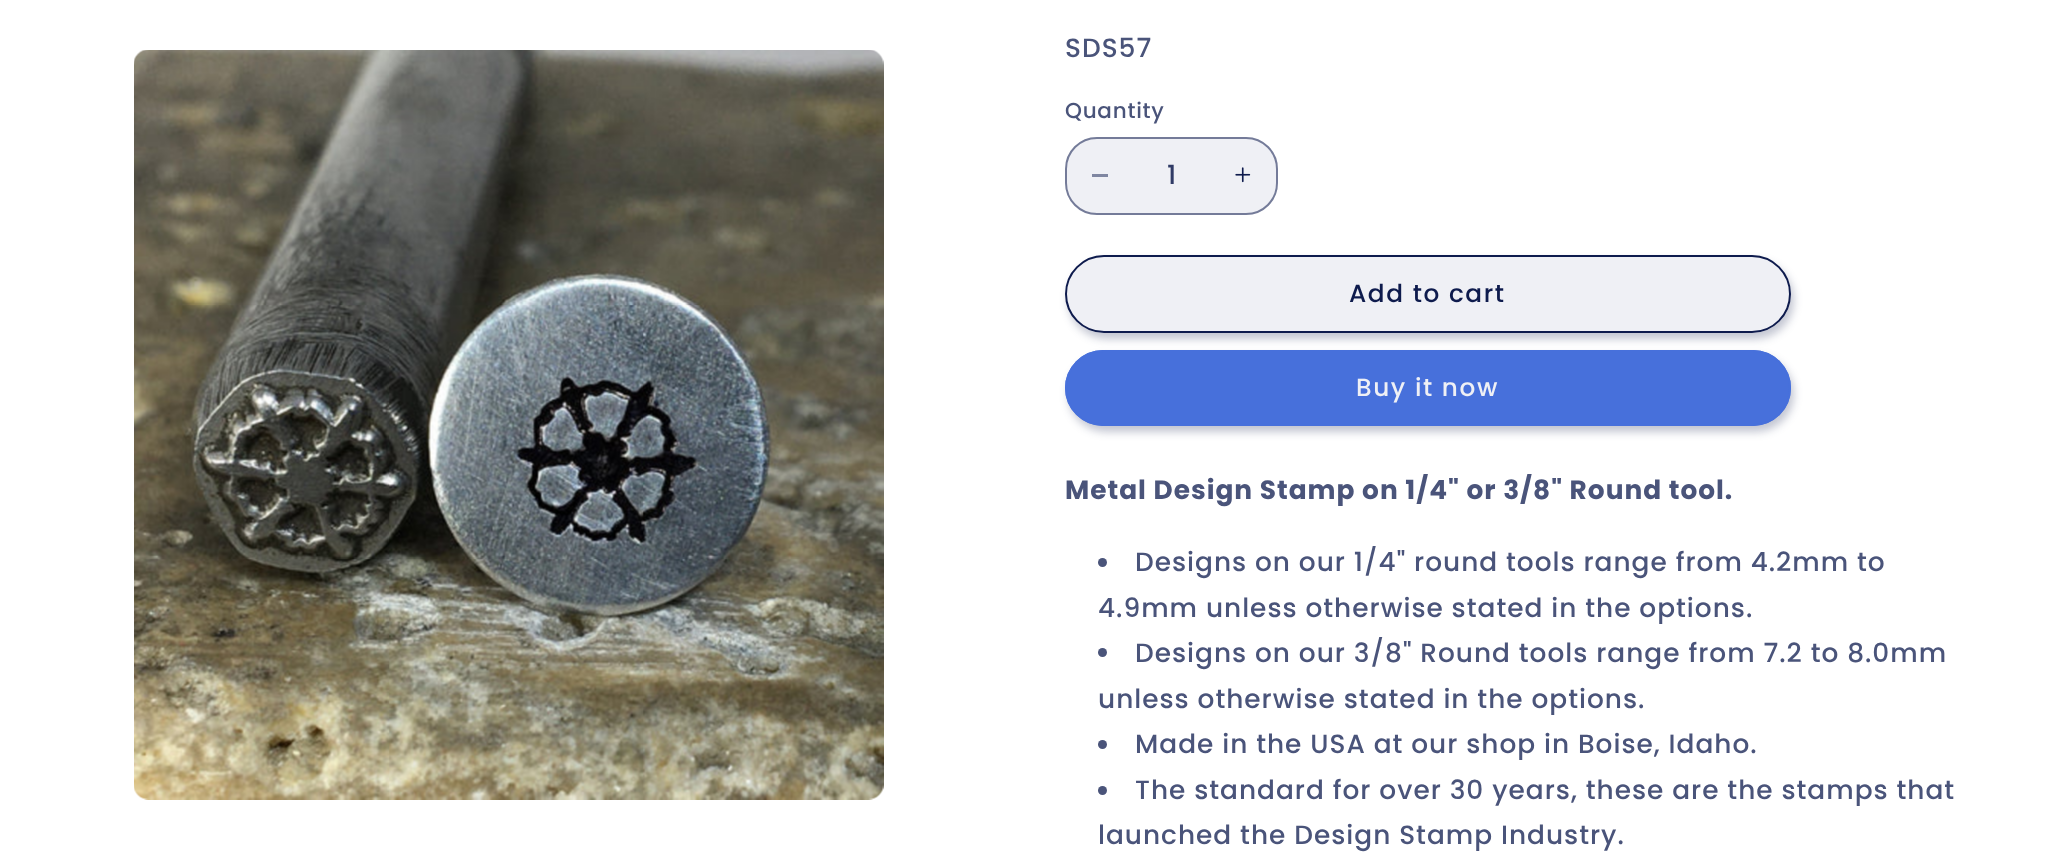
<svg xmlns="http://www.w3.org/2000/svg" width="2054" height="860">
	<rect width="100%" height="100%" fill="#FFFFFF" />
	<image x="134" y="50" width="750" height="750" href="assets/img1.png" />
	<text x="1065" y="57" font-family="Poppins" font-size="26.4" font-weight="500" letter-spacing="1" fill="#4A547A">SDS57</text>
	<text x="1065" y="118" font-family="Poppins" font-size="21.5" font-weight="500" letter-spacing="0.75" fill="#4A547A">Quantity</text>
	<rect x="1065" y="137" width="213" height="78" rx="32" fill="#EFF0F5" />
	<rect x="1092" y="174" width="16" height="3" fill="#7F86A1" />
	<image x="1235" y="167" width="16" height="16" href="assets/img2.png" />
	<rect x="1066" y="138" width="211" height="76" rx="31" fill="none" stroke="#0E1B4D" stroke-opacity="0.55" stroke-width="2" />
	<text x="1167" y="184" font-family="Poppins" font-size="26.4" font-weight="500" fill="#303B66">1</text>
	<rect x="1068" y="261" width="726" height="78" rx="39" fill="#0E1B4D" fill-opacity="0.25" filter="blur(4px)" />
	<rect x="1065" y="255" width="726" height="78" rx="39" fill="#EFF0F5" />
	<rect x="1066" y="256" width="724" height="76" rx="38" fill="none" stroke="#EFF0F5" stroke-width="2" />
	<rect x="1066" y="256" width="724" height="76" rx="38" fill="none" stroke="#0E1B4D" stroke-width="2" />
	<text x="1349" y="302" font-family="Poppins" font-size="24.75" font-weight="500" letter-spacing="1.6" fill="#0E1B4D">Add to cart</text>
	<rect x="1068" y="356" width="726" height="76" rx="38" fill="#0E1B4D" fill-opacity="0.25" filter="blur(4px)" />
	<rect x="1065" y="350" width="726" height="76" rx="38" fill="#4770DB" />
	<rect x="1066" y="351" width="724" height="74" rx="37" fill="none" stroke="#4770DB" stroke-width="2" />
	<text x="1356" y="396" font-family="Poppins" font-size="24.75" font-weight="500" letter-spacing="1.6" fill="#EFF0F5">Buy it now</text>
	<text x="1065" y="499" font-family="Poppins" font-size="26.4" font-weight="700" letter-spacing="1" fill="#4A547A">Metal Design Stamp on 1/4" or 3/8" Round tool.</text>
	<circle cx="1102.5" cy="562.5" r="4.5" fill="#4A547A" />
	<g font-family="Poppins" font-size="26.4" font-weight="500" letter-spacing="1" fill="#4A547A">
		<text x="1135" y="571">Designs on our 1/4" round tools range from 4.2mm to</text>
		<text x="1098" y="617">4.9mm unless otherwise stated in the options.</text>
	</g>
	<circle cx="1102.5" cy="652.5" r="4.5" fill="#4A547A" />
	<g font-family="Poppins" font-size="26.4" font-weight="500" letter-spacing="1" fill="#4A547A">
		<text x="1135" y="662">Designs on our 3/8" Round tools range from 7.2 to 8.0mm</text>
		<text x="1098" y="708">unless otherwise stated in the options.</text>
	</g>
	<circle cx="1102.5" cy="744.5" r="4.5" fill="#4A547A" />
	<text x="1135" y="753" font-family="Poppins" font-size="26.4" font-weight="500" letter-spacing="1" fill="#4A547A">Made in the USA at our shop in Boise, Idaho.</text>
	<circle cx="1102.5" cy="790.5" r="4.5" fill="#4A547A" />
	<g font-family="Poppins" font-size="26.4" font-weight="500" letter-spacing="1" fill="#4A547A">
		<text x="1135" y="799">The standard for over 30 years, these are the stamps that</text>
		<text x="1098" y="844">launched the Design Stamp Industry.</text>
	</g>
</svg>
